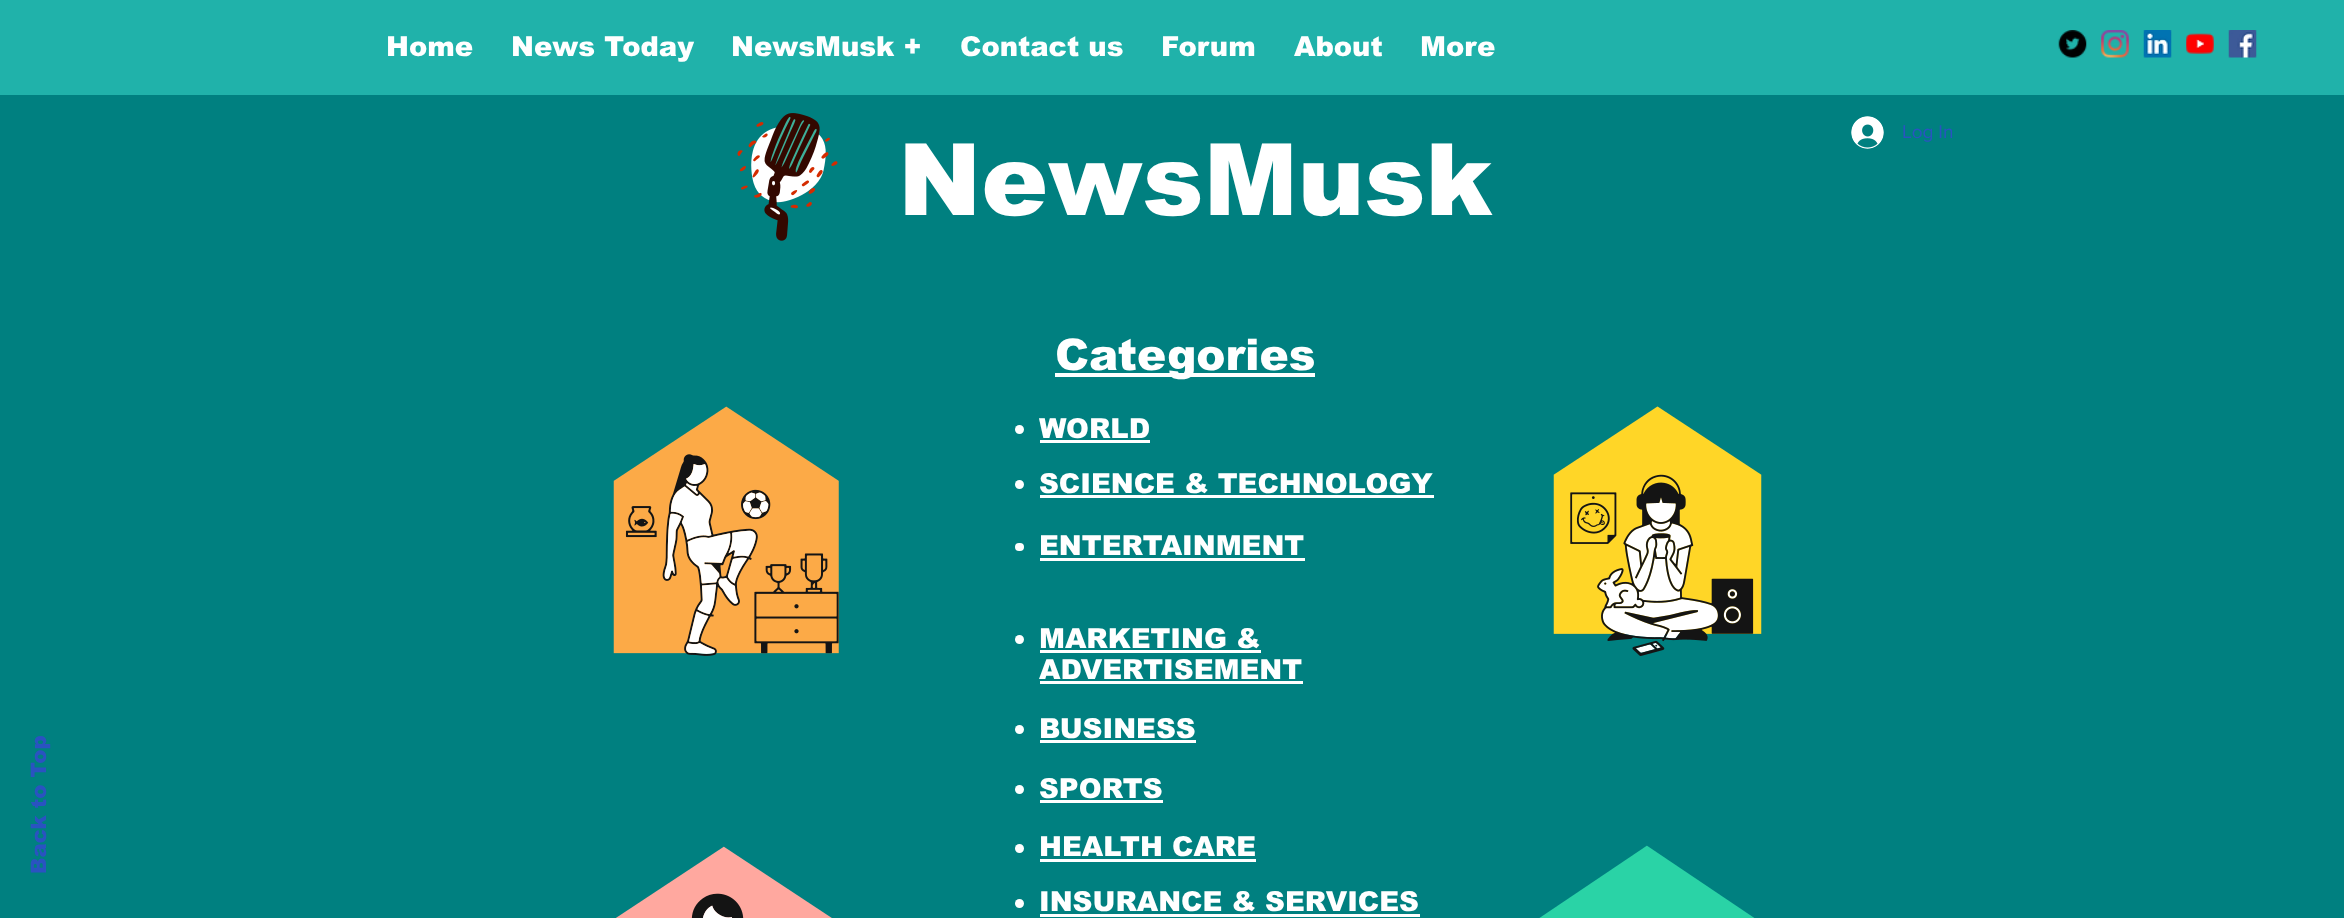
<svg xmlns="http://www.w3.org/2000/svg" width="2344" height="918">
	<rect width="100%" height="100%" fill="#008080" />
	<rect x="0" y="0" width="2344" height="95" fill="#20B2AA" />
	<g font-family="arial" font-size="27.5" font-weight="900" fill="#FFFFFF">
		<text x="386" y="56">Home</text>
		<text x="511" y="56">News Today</text>
		<text x="731" y="56">NewsMusk +</text>
		<text x="960" y="56">Contact us</text>
		<text x="1161" y="56">Forum</text>
		<text x="1294" y="56">About</text>
		<text x="1420" y="56">More</text>
	</g>
	<image x="2058" y="30" width="29" height="28" href="assets/img1.png" />
	<image x="2101" y="30" width="28" height="28" href="assets/img2.png" />
	<image x="2143" y="30" width="29" height="28" href="assets/img3.png" />
	<image x="2186" y="33" width="28" height="21" href="assets/img4.png" />
	<image x="2228" y="30" width="29" height="28" href="assets/img5.png" />
	<image x="737" y="113" width="101" height="128" href="assets/img6.png" />
	<image x="1851" y="116" width="33" height="33" href="assets/img7.png" />
	<text x="1902" y="138" font-family="'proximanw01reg'" font-size="19" fill="#2A53C1">Log In</text>
	<text x="898" y="215" font-family="arial" font-size="100" font-weight="900" fill="#FFFFFF">NewsMusk</text>
	<text x="46" y="874" transform="rotate(-90 46 874)" font-family="arial" font-size="21.25" font-weight="900" fill="#2A53C1">Back to Top</text>
	<rect x="1055" y="373" width="260" height="4" fill="#FFFFFF" />
	<text x="1055" y="370" font-family="arial" font-size="43.75" font-weight="900" fill="#FFFFFF">Categories</text>
	<image x="613" y="406" width="226" height="250" href="assets/img8.png" />
	<circle cx="1019.5" cy="429.5" r="4.5" fill="#FFFFFF" />
	<text x="1039" y="438" font-family="arial" font-size="27.5" font-weight="900" fill="#FFFFFF">WORLD</text>
	<rect x="1040" y="440" width="110" height="3" fill="#FFFFFF" />
	<image x="1553" y="406" width="209" height="250" href="assets/img9.png" />
	<circle cx="1019.5" cy="484.5" r="4.5" fill="#FFFFFF" />
	<text x="1039" y="493" font-family="arial" font-size="27.5" font-weight="900" fill="#FFFFFF">SCIENCE &amp; TECHNOLOGY</text>
	<rect x="1040" y="495" width="394" height="3" fill="#FFFFFF" />
	<rect x="1015" y="543" width="9" height="8" rx="4" fill="#FFFFFF" />
	<text x="1039" y="555" font-family="arial" font-size="27.5" font-weight="900" fill="#FFFFFF">ENTERTAINMENT</text>
	<rect x="1040" y="558" width="265" height="3" fill="#FFFFFF" />
	<circle cx="1019.5" cy="639.5" r="4.5" fill="#FFFFFF" />
	<text x="1039" y="648" font-family="arial" font-size="27.5" font-weight="900" fill="#FFFFFF">MARKETING &amp;</text>
	<rect x="1040" y="650" width="221" height="3" fill="#FFFFFF" />
	<text x="1039" y="679" font-family="arial" font-size="27.5" font-weight="900" fill="#FFFFFF">ADVERTISEMENT</text>
	<rect x="1040" y="681" width="263" height="3" fill="#FFFFFF" />
	<circle cx="1019.5" cy="729.5" r="4.5" fill="#FFFFFF" />
	<text x="1039" y="738" font-family="arial" font-size="27.5" font-weight="900" fill="#FFFFFF">BUSINESS</text>
	<rect x="1040" y="740" width="156" height="3" fill="#FFFFFF" />
	<circle cx="1019.5" cy="789.5" r="4.5" fill="#FFFFFF" />
	<text x="1039" y="798" font-family="arial" font-size="27.5" font-weight="900" fill="#FFFFFF">SPORTS</text>
	<rect x="1040" y="800" width="123" height="3" fill="#FFFFFF" />
	<image x="616" y="846" width="216" height="72" href="assets/img10.png" />
	<circle cx="1019.5" cy="848.5" r="4.5" fill="#FFFFFF" />
	<text x="1039" y="856" font-family="arial" font-size="27.5" font-weight="900" fill="#FFFFFF">HEALTH CARE</text>
	<rect x="1040" y="859" width="216" height="3" fill="#FFFFFF" />
	<image x="1539" y="845" width="216" height="73" href="assets/img11.png" />
	<circle cx="1019.5" cy="903.5" r="4.5" fill="#FFFFFF" />
	<text x="1039" y="911" font-family="arial" font-size="27.5" font-weight="900" fill="#FFFFFF">INSURANCE &amp; SERVICES</text>
	<rect x="1040" y="914" width="380" height="3" fill="#FFFFFF" />
</svg>
